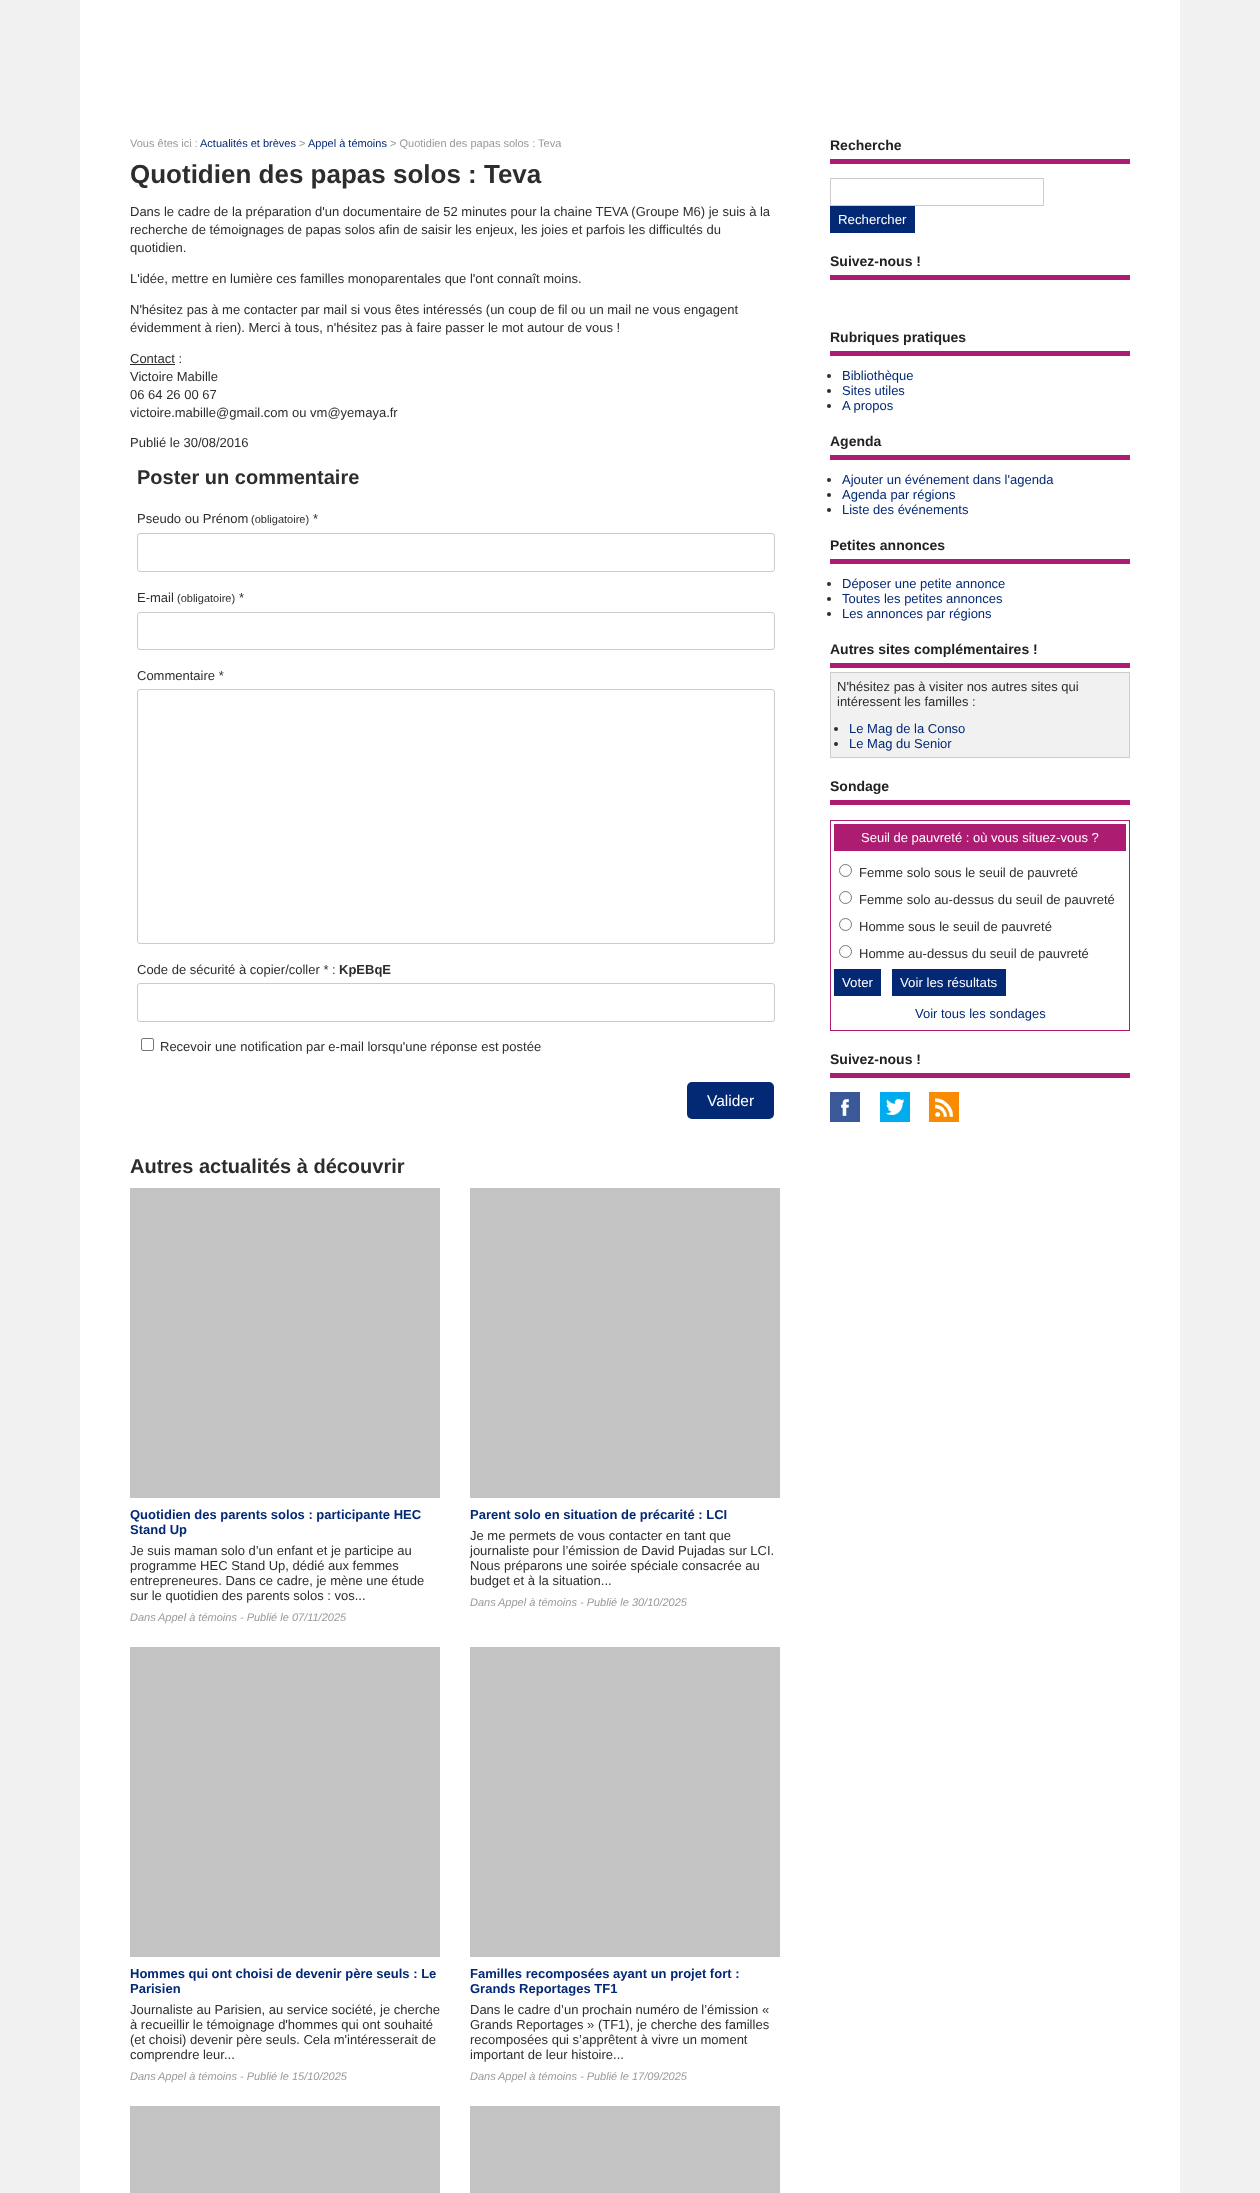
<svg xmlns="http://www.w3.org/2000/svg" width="1260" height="2193">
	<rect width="100%" height="100%" fill="#F1F1F1" />
	<rect x="80" y="0" width="1100" height="2193" fill="#FFFFFF" />
	<text x="130" y="147" font-family="Liberation Sans" font-size="11" fill="#999999">Vous êtes ici :</text>
	<text x="200" y="147" font-family="Liberation Sans" font-size="11" fill="#032975">Actualités et brèves</text>
	<text x="299" y="147" font-family="Liberation Sans" font-size="11" fill="#999999">&gt;</text>
	<text x="308" y="147" font-family="Liberation Sans" font-size="11" fill="#032975">Appel à témoins</text>
	<text x="390" y="147" font-family="Liberation Sans" font-size="11" fill="#999999">&gt; Quotidien des papas solos : Teva</text>
	<text x="130" y="183" font-family="Liberation Sans" font-size="26" font-weight="700" fill="#2D2D2D">Quotidien des papas solos : Teva</text>
	<g font-family="Liberation Sans" font-size="13" fill="#2D2D2D">
		<text x="130" y="216">Dans le cadre de la préparation d'un documentaire de 52 minutes pour la chaine TEVA (Groupe M6) je suis à la</text>
		<text x="130" y="234">recherche de témoignages de papas solos afin de saisir les enjeux, les joies et parfois les difficultés du</text>
		<text x="130" y="252">quotidien.</text>
		<text x="130" y="283">L'idée, mettre en lumière ces familles monoparentales que l'ont connaît moins.</text>
		<text x="130" y="314">N'hésitez pas à me contacter par mail si vous êtes intéressés (un coup de fil ou un mail ne vous engagent</text>
		<text x="130" y="332">évidemment à rien). Merci à tous, n'hésitez pas à faire passer le mot autour de vous !</text>
		<text x="130" y="363">Contact :</text>
	</g>
	<rect x="130" y="364" width="45" height="1" fill="#2D2D2D" />
	<g font-family="Liberation Sans" font-size="13" fill="#2D2D2D">
		<text x="130" y="381">Victoire Mabille</text>
		<text x="130" y="399">06 64 26 00 67</text>
		<text x="130" y="417">victoire.mabille@gmail.com ou vm@yemaya.fr</text>
		<text x="130" y="447">Publié le 30/08/2016</text>
	</g>
	<text x="137" y="484" font-family="Liberation Sans" font-size="20" font-weight="700" fill="#2D2D2D">Poster un commentaire</text>
	<text x="137" y="523" font-family="Liberation Sans" font-size="13" fill="#2D2D2D">Pseudo ou Prénom</text>
	<text x="251" y="523" font-family="Liberation Sans" font-size="11" fill="#2D2D2D">(obligatoire)</text>
	<text x="313" y="523" font-family="Liberation Sans" font-size="13" fill="#2D2D2D">*</text>
	<rect x="137.5" y="533.5" width="637" height="38" rx="2.5" fill="none" stroke="#CCCCCC" />
	<text x="137" y="602" font-family="Liberation Sans" font-size="13" fill="#2D2D2D">E-mail</text>
	<text x="177" y="602" font-family="Liberation Sans" font-size="11" fill="#2D2D2D">(obligatoire)</text>
	<text x="239" y="602" font-family="Liberation Sans" font-size="13" fill="#2D2D2D">*</text>
	<rect x="137.5" y="612.5" width="637" height="37" rx="2.5" fill="none" stroke="#CCCCCC" />
	<text x="137" y="680" font-family="Liberation Sans" font-size="13" fill="#2D2D2D">Commentaire *</text>
	<rect x="137.5" y="689.5" width="637" height="254" rx="2.5" fill="none" stroke="#CCCCCC" />
	<text x="137" y="974" font-family="Liberation Sans" font-size="13" fill="#2D2D2D">Code de sécurité à copier/coller * :</text>
	<text x="339" y="974" font-family="Liberation Sans" font-size="13" font-weight="700" fill="#2D2D2D">KpEBqE</text>
	<rect x="137.5" y="983.5" width="637" height="38" rx="2.5" fill="none" stroke="#CCCCCC" />
	<rect x="141.5" y="1038.5" width="12" height="12" rx="1.5" fill="none" stroke="#767676" />
	<text x="160" y="1051" font-family="Liberation Sans" font-size="13" fill="#2D2D2D">Recevoir une notification par e-mail lorsqu'une réponse est postée</text>
	<rect x="687" y="1082" width="87" height="37" rx="5" fill="#032975" />
	<text x="707" y="1106" font-family="Liberation Sans" font-size="15.5" fill="#FFFFFF">Valider</text>
	<text x="130" y="1173" font-family="Liberation Sans" font-size="20" font-weight="700" fill="#2D2D2D">Autres actualités à découvrir</text>
	<rect x="130" y="1188" width="310" height="310" fill="#C3C3C3" />
	<g font-family="Liberation Sans" font-size="13" font-weight="700" fill="#032975">
		<text x="130" y="1519">Quotidien des parents solos : participante HEC</text>
		<text x="130" y="1534">Stand Up</text>
	</g>
	<g font-family="Liberation Sans" font-size="13" fill="#2D2D2D">
		<text x="130" y="1555">Je suis maman solo d’un enfant et je participe au</text>
		<text x="130" y="1570">programme HEC Stand Up, dédié aux femmes</text>
		<text x="130" y="1585">entrepreneures. Dans ce cadre, je mène une étude</text>
		<text x="130" y="1600">sur le quotidien des parents solos : vos...</text>
	</g>
	<g font-family="Liberation Sans" font-size="11" font-style="italic" fill="#999999">
		<text x="130" y="1621">Dans</text>
		<text x="158" y="1621">Appel à témoins - Publié le 07/11/2025</text>
	</g>
	<rect x="470" y="1188" width="310" height="310" fill="#C3C3C3" />
	<text x="470" y="1519" font-family="Liberation Sans" font-size="13" font-weight="700" fill="#032975">Parent solo en situation de précarité : LCI</text>
	<g font-family="Liberation Sans" font-size="13" fill="#2D2D2D">
		<text x="470" y="1540">Je me permets de vous contacter en tant que</text>
		<text x="470" y="1555">journaliste pour l’émission de David Pujadas sur LCI.</text>
		<text x="470" y="1570">Nous préparons une soirée spéciale consacrée au</text>
		<text x="470" y="1585">budget et à la situation...</text>
	</g>
	<g font-family="Liberation Sans" font-size="11" font-style="italic" fill="#999999">
		<text x="470" y="1606">Dans</text>
		<text x="498" y="1606">Appel à témoins - Publié le 30/10/2025</text>
	</g>
	<rect x="130" y="1647" width="310" height="310" fill="#C3C3C3" />
	<g font-family="Liberation Sans" font-size="13" font-weight="700" fill="#032975">
		<text x="130" y="1978">Hommes qui ont choisi de devenir père seuls : Le</text>
		<text x="130" y="1993">Parisien</text>
	</g>
	<g font-family="Liberation Sans" font-size="13" fill="#2D2D2D">
		<text x="130" y="2014">Journaliste au Parisien, au service société, je cherche</text>
		<text x="130" y="2029">à recueillir le témoignage d'hommes qui ont souhaité</text>
		<text x="130" y="2044">(et choisi) devenir père seuls. Cela m'intéresserait de</text>
		<text x="130" y="2059">comprendre leur...</text>
	</g>
	<g font-family="Liberation Sans" font-size="11" font-style="italic" fill="#999999">
		<text x="130" y="2080">Dans</text>
		<text x="158" y="2080">Appel à témoins - Publié le 15/10/2025</text>
	</g>
	<rect x="470" y="1647" width="310" height="310" fill="#C3C3C3" />
	<g font-family="Liberation Sans" font-size="13" font-weight="700" fill="#032975">
		<text x="470" y="1978">Familles recomposées ayant un projet fort :</text>
		<text x="470" y="1993">Grands Reportages TF1</text>
	</g>
	<g font-family="Liberation Sans" font-size="13" fill="#2D2D2D">
		<text x="470" y="2014">Dans le cadre d’un prochain numéro de l’émission «</text>
		<text x="470" y="2029">Grands Reportages » (TF1), je cherche des familles</text>
		<text x="470" y="2044">recomposées qui s’apprêtent à vivre un moment</text>
		<text x="470" y="2059">important de leur histoire...</text>
	</g>
	<g font-family="Liberation Sans" font-size="11" font-style="italic" fill="#999999">
		<text x="470" y="2080">Dans</text>
		<text x="498" y="2080">Appel à témoins - Publié le 17/09/2025</text>
	</g>
	<rect x="130" y="2106" width="310" height="87" fill="#C3C3C3" />
	<rect x="470" y="2106" width="310" height="87" fill="#C3C3C3" />
	<rect x="830" y="159" width="300" height="5" fill="#AC1D72" />
	<text x="830" y="150" font-family="Liberation Sans" font-size="14" font-weight="700" fill="#222222">Recherche</text>
	<rect x="830.5" y="178.5" width="213" height="27" fill="none" stroke="#CCCCCC" />
	<rect x="830" y="206" width="85" height="27" fill="#032975" />
	<text x="838" y="224" font-family="Liberation Sans" font-size="13.25" fill="#FFFFFF">Rechercher</text>
	<rect x="830" y="275" width="300" height="5" fill="#AC1D72" />
	<text x="830" y="266" font-family="Liberation Sans" font-size="14" font-weight="700" fill="#222222">Suivez-nous !</text>
	<rect x="830" y="351" width="300" height="5" fill="#AC1D72" />
	<text x="830" y="342" font-family="Liberation Sans" font-size="14" font-weight="700" fill="#222222">Rubriques pratiques</text>
	<circle cx="829" cy="376" r="2" fill="#2D2D2D" />
	<text x="842" y="380" font-family="Liberation Sans" font-size="13" fill="#032975">Bibliothèque</text>
	<circle cx="829" cy="391" r="2" fill="#2D2D2D" />
	<text x="842" y="395" font-family="Liberation Sans" font-size="13" fill="#032975">Sites utiles</text>
	<circle cx="829" cy="406" r="2" fill="#2D2D2D" />
	<text x="842" y="410" font-family="Liberation Sans" font-size="13" fill="#032975">A propos</text>
	<rect x="830" y="455" width="300" height="5" fill="#AC1D72" />
	<text x="830" y="446" font-family="Liberation Sans" font-size="14" font-weight="700" fill="#222222">Agenda</text>
	<circle cx="829" cy="480" r="2" fill="#2D2D2D" />
	<text x="842" y="484" font-family="Liberation Sans" font-size="13" fill="#032975">Ajouter un événement dans l'agenda</text>
	<circle cx="829" cy="495" r="2" fill="#2D2D2D" />
	<text x="842" y="499" font-family="Liberation Sans" font-size="13" fill="#032975">Agenda par régions</text>
	<circle cx="829" cy="510" r="2" fill="#2D2D2D" />
	<text x="842" y="514" font-family="Liberation Sans" font-size="13" fill="#032975">Liste des événements</text>
	<rect x="830" y="559" width="300" height="5" fill="#AC1D72" />
	<text x="830" y="550" font-family="Liberation Sans" font-size="14" font-weight="700" fill="#222222">Petites annonces</text>
	<circle cx="829" cy="584" r="2" fill="#2D2D2D" />
	<text x="842" y="588" font-family="Liberation Sans" font-size="13" fill="#032975">Déposer une petite annonce</text>
	<circle cx="829" cy="599" r="2" fill="#2D2D2D" />
	<text x="842" y="603" font-family="Liberation Sans" font-size="13" fill="#032975">Toutes les petites annonces</text>
	<circle cx="829" cy="614" r="2" fill="#2D2D2D" />
	<text x="842" y="618" font-family="Liberation Sans" font-size="13" fill="#032975">Les annonces par régions</text>
	<rect x="830" y="663" width="300" height="5" fill="#AC1D72" />
	<text x="830" y="654" font-family="Liberation Sans" font-size="14" font-weight="700" fill="#222222">Autres sites complémentaires !</text>
	<rect x="830.5" y="672.5" width="299" height="85" fill="#F1F1F1" stroke="#CCCCCC" />
	<g font-family="Liberation Sans" font-size="13" fill="#2D2D2D">
		<text x="837" y="691">N'hésitez pas à visiter nos autres sites qui</text>
		<text x="837" y="706">intéressent les familles :</text>
	</g>
	<circle cx="836" cy="729" r="2" fill="#2D2D2D" />
	<text x="849" y="733" font-family="Liberation Sans" font-size="13" fill="#032975">Le Mag de la Conso</text>
	<circle cx="836" cy="744" r="2" fill="#2D2D2D" />
	<text x="849" y="748" font-family="Liberation Sans" font-size="13" fill="#032975">Le Mag du Senior</text>
	<rect x="830" y="800" width="300" height="5" fill="#AC1D72" />
	<text x="830" y="791" font-family="Liberation Sans" font-size="14" font-weight="700" fill="#222222">Sondage</text>
	<rect x="830.5" y="820.5" width="299" height="210" fill="none" stroke="#AC1D72" />
	<rect x="834" y="824" width="292" height="27" fill="#AC1D72" />
	<text x="861" y="842" font-family="Liberation Sans" font-size="13" fill="#FFFFFF">Seuil de pauvreté : où vous situez-vous ?</text>
	<circle cx="845.5" cy="870.5" r="6" fill="none" stroke="#767676" />
	<text x="859" y="877" font-family="Liberation Sans" font-size="13" fill="#2D2D2D">Femme solo sous le seuil de pauvreté</text>
	<circle cx="845.5" cy="897.5" r="6" fill="none" stroke="#767676" />
	<text x="859" y="904" font-family="Liberation Sans" font-size="13" fill="#2D2D2D">Femme solo au-dessus du seuil de pauvreté</text>
	<circle cx="845.5" cy="924.5" r="6" fill="none" stroke="#767676" />
	<text x="859" y="931" font-family="Liberation Sans" font-size="13" fill="#2D2D2D">Homme sous le seuil de pauvreté</text>
	<circle cx="845.5" cy="951.5" r="6" fill="none" stroke="#767676" />
	<text x="859" y="958" font-family="Liberation Sans" font-size="13" fill="#2D2D2D">Homme au-dessus du seuil de pauvreté</text>
	<rect x="834" y="969" width="47" height="27" fill="#032975" />
	<text x="842" y="987" font-family="Liberation Sans" font-size="13.25" fill="#FFFFFF">Voter</text>
	<rect x="892" y="969" width="114" height="27" fill="#032975" />
	<text x="900" y="987" font-family="Liberation Sans" font-size="13.25" fill="#FFFFFF">Voir les résultats</text>
	<text x="915" y="1018" font-family="Liberation Sans" font-size="13" fill="#032975">Voir tous les sondages</text>
	<rect x="830" y="1073" width="300" height="5" fill="#AC1D72" />
	<text x="830" y="1064" font-family="Liberation Sans" font-size="14" font-weight="700" fill="#222222">Suivez-nous !</text>
	<image x="830" y="1092" width="30" height="30" href="assets/img1.png" />
	<image x="880" y="1092" width="30" height="30" href="assets/img2.png" />
	<image x="929" y="1092" width="30" height="30" href="assets/img3.png" />
</svg>
